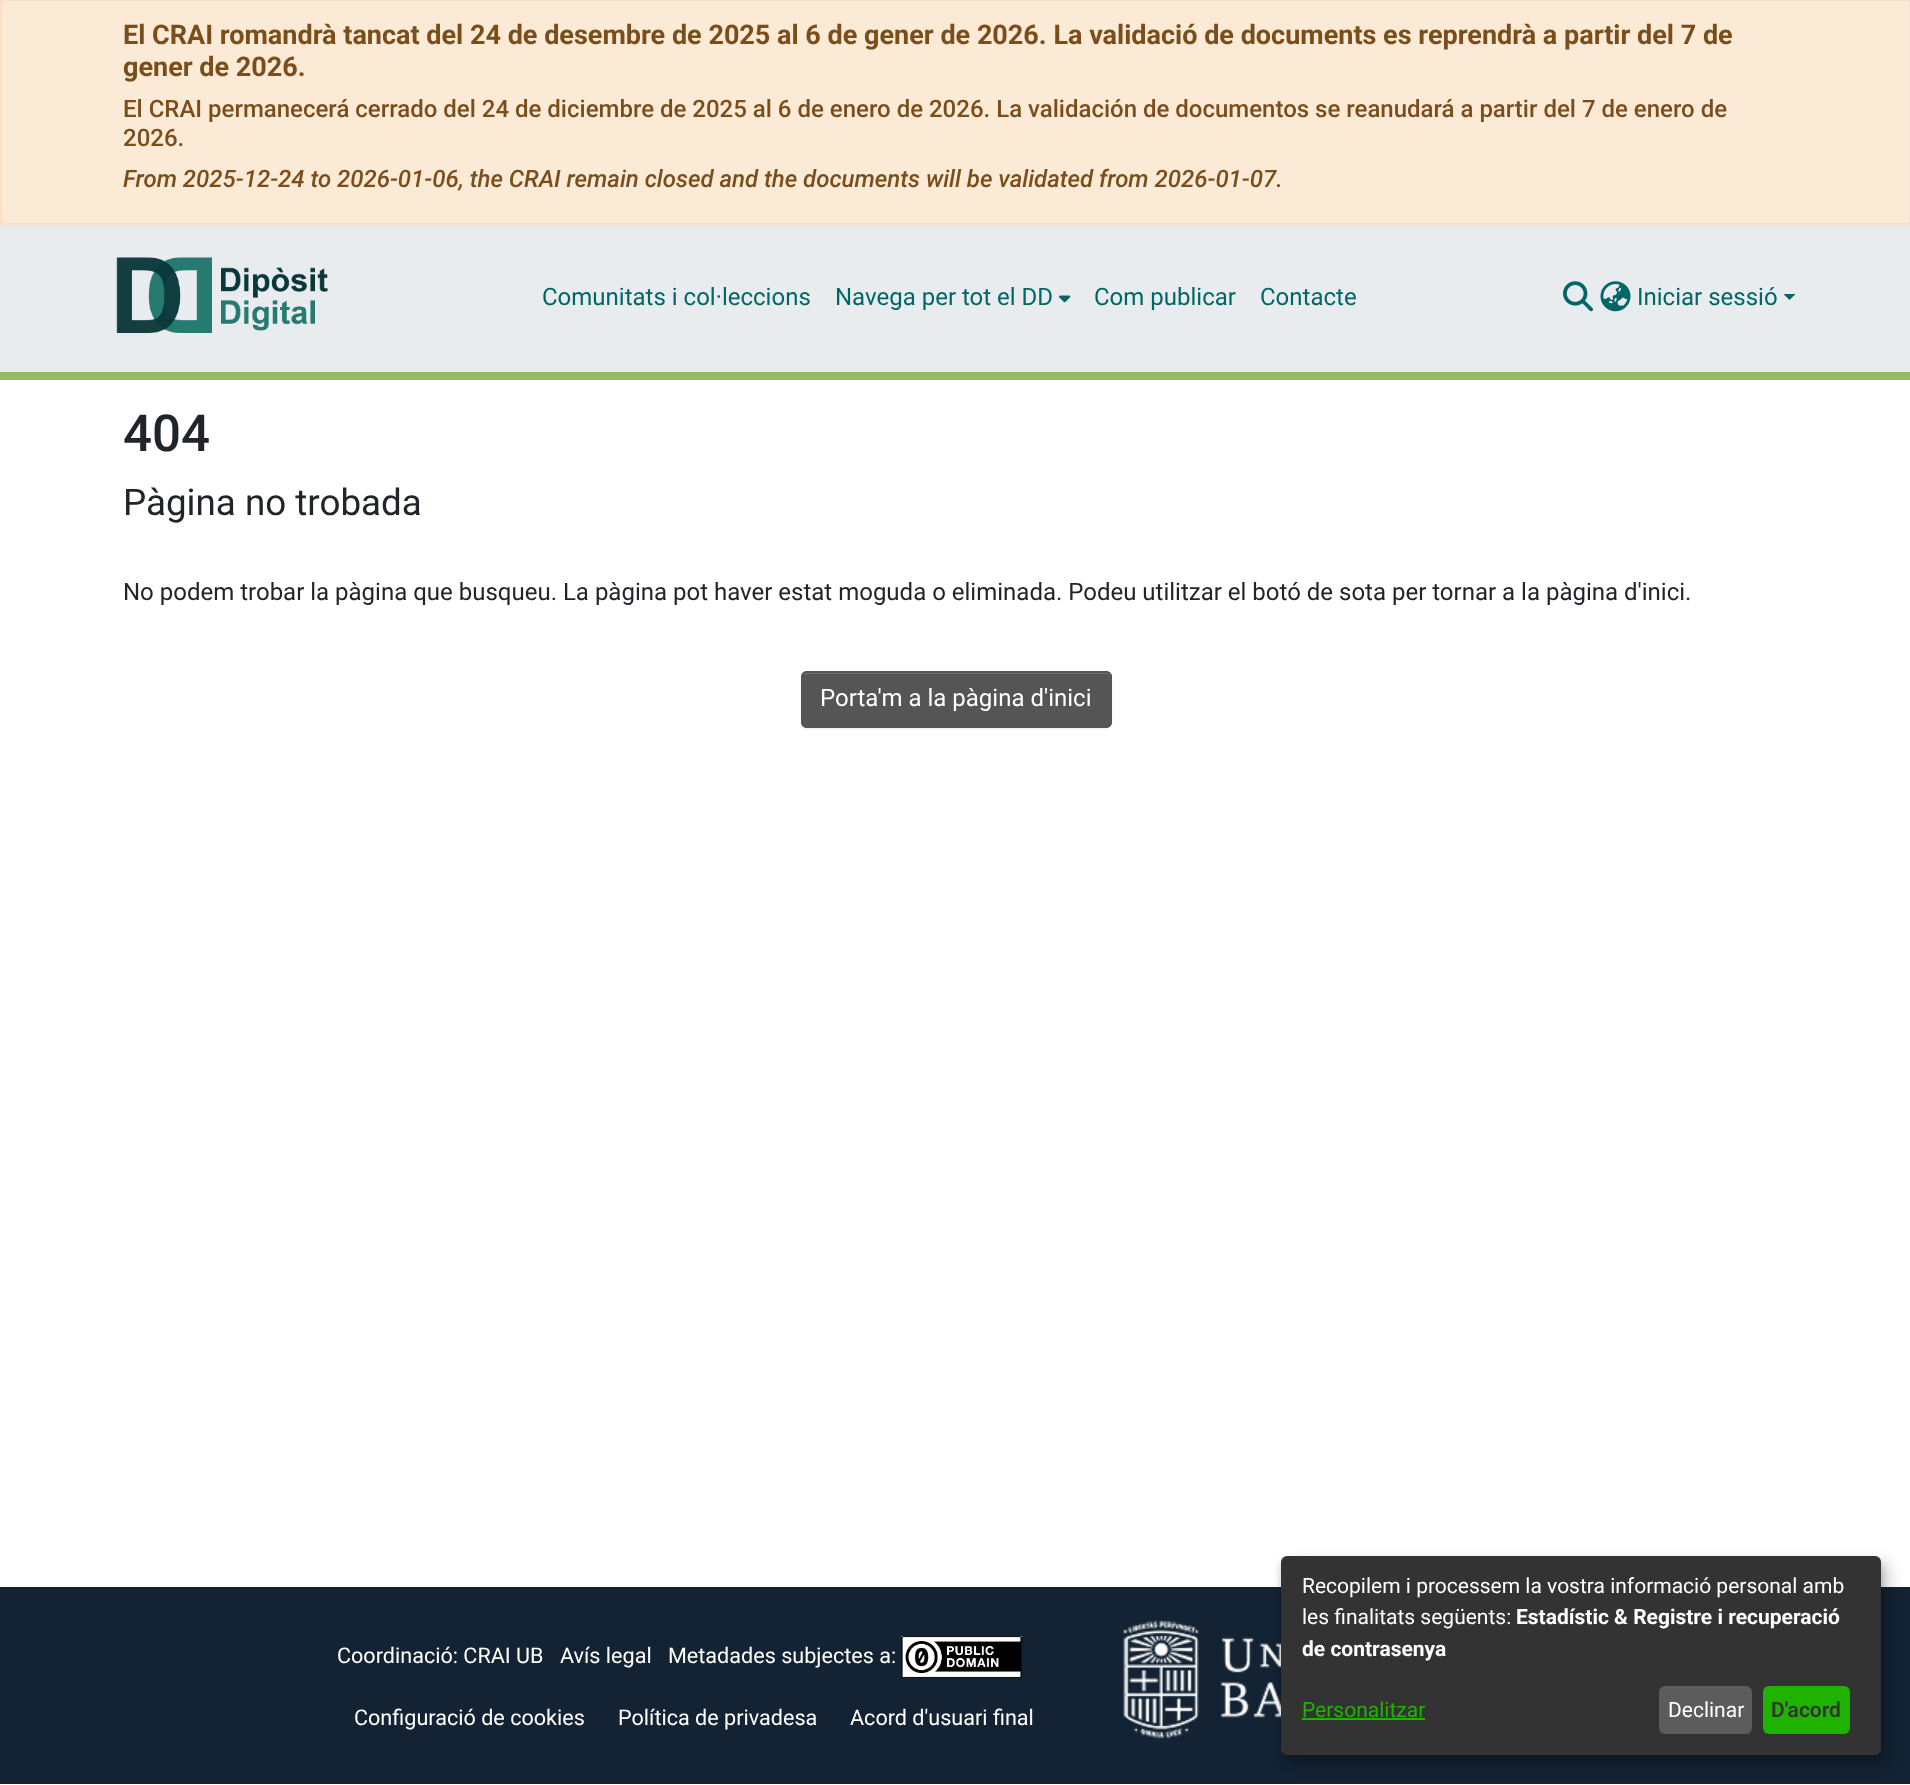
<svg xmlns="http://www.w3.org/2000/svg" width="1910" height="1785">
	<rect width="100%" height="100%" fill="#FFFFFF" />
	<rect x="1" y="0" width="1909" height="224" fill="#FBEAD6" stroke="#FAE1C6" stroke-width="2" />
	<g font-family="Roboto" font-size="27" font-weight="700" fill="#7B4D1B">
		<text x="123" y="44">El CRAI romandrà tancat del 24 de desembre de 2025 al 6 de gener de 2026. La validació de documents es reprendrà a partir del 7 de</text>
		<text x="123" y="76">gener de 2026.</text>
	</g>
	<g font-family="Roboto" font-size="24" font-weight="500" fill="#7B4D1B">
		<text x="123" y="117">El CRAI permanecerá cerrado del 24 de diciembre de 2025 al 6 de enero de 2026. La validación de documentos se reanudará a partir del 7 de enero de</text>
		<text x="123" y="146">2026.</text>
	</g>
	<text x="123" y="187" font-family="Roboto" font-size="24" font-weight="500" font-style="italic" fill="#7B4D1B">From 2025-12-24 to 2026-01-06, the CRAI remain closed and the documents will be validated from 2026-01-07.</text>
	<rect x="0" y="372" width="1910" height="8" fill="#94BA65" />
	<rect x="0" y="225" width="1910" height="147" fill="#E9ECEF" />
	<image x="116" y="257" width="212" height="76" href="assets/img1.png" />
	<g font-family="Roboto" font-size="24" fill="#006666">
		<text x="542" y="305">Comunitats i col·leccions</text>
		<text x="835" y="305">Navega per tot el DD</text>
	</g>
	<image x="1059" y="295" width="12" height="8" href="assets/img2.png" />
	<g font-family="Roboto" font-size="24" fill="#006666">
		<text x="1094" y="305">Com publicar</text>
		<text x="1260" y="305">Contacte</text>
	</g>
	<image x="1563" y="281" width="30" height="31" href="assets/img3.png" />
	<image x="1600" y="281" width="31" height="31" href="assets/img4.png" />
	<text x="1637" y="305" font-family="Roboto" font-size="24" fill="#006666">Iniciar sessió</text>
	<path d="M1783.5 294H1795.5L1789.5 300Z" fill="#006666" />
	<text x="123" y="451" font-family="Roboto" font-size="51" font-weight="500" fill="#212529">404</text>
	<text x="123" y="515" font-family="Roboto" font-size="36.75" fill="#212529">Pàgina no trobada</text>
	<text x="123" y="600" font-family="Roboto" font-size="24" fill="#212529">No podem trobar la pàgina que busqueu. La pàgina pot haver estat moguda o eliminada. Podeu utilitzar el botó de sota per tornar a la pàgina d'inici.</text>
	<rect x="801" y="672" width="311" height="57" rx="6" fill="#000000" fill-opacity="0.07" filter="blur(1px)" />
	<rect x="801" y="671" width="311" height="57" rx="6" fill="#555555" />
	<path d="M807 674H1106C1108 674 1110 676 1110 678V677C1110 674 1108 672 1105 672H808C806 672 804 674 803 676C804 675 806 674 807 674Z" fill="#6F6F6F" />
	<rect x="802" y="672" width="309" height="55" rx="5" fill="none" stroke="#555555" stroke-width="2" />
	<text x="820" y="706" font-family="Roboto" font-size="24" fill="#FFFFFF">Porta'm a la pàgina d'inici</text>
	<rect x="0" y="1587" width="1910" height="197" fill="#132333" />
	<g font-family="Roboto" font-size="21.6" fill="#FFFFFF">
		<text x="337" y="1663">Coordinació: CRAI UB</text>
		<text x="560" y="1663">Avís legal</text>
		<text x="668" y="1663">Metadades subjectes a:</text>
	</g>
	<image x="901" y="1636" width="121" height="42" href="assets/img5.png" />
	<g font-family="Roboto" font-size="21.6" fill="#FFFFFF">
		<text x="354" y="1725">Configuració de cookies</text>
		<text x="618" y="1725">Política de privadesa</text>
		<text x="850" y="1725">Acord d'usuari final</text>
	</g>
	<image x="1123" y="1620" width="158" height="119" href="assets/img6.png" />
	<rect x="1289" y="1563" width="600" height="200" rx="6" fill="#000000" fill-opacity="0.19" filter="blur(7.5px)" />
	<rect x="1281" y="1562" width="600" height="199" rx="6" fill="#000000" fill-opacity="0.2" filter="blur(4.5px)" />
	<rect x="1281" y="1556" width="600" height="199" rx="6" fill="#333333" />
	<g font-family="Roboto" font-size="21" fill="#FFFFFF">
		<text x="1302" y="1593">Recopilem i processem la vostra informació personal amb</text>
		<text x="1302" y="1624">les finalitats següents:</text>
	</g>
	<g font-family="Roboto" font-size="21" font-weight="700" fill="#FFFFFF">
		<text x="1516" y="1624">Estadístic &amp; Registre i recuperació</text>
		<text x="1302" y="1656">de contrasenya</text>
	</g>
	<text x="1302" y="1717" font-family="Roboto" font-size="21" fill="#1FB300">Personalitzar</text>
	<rect x="1302" y="1718" width="123" height="2" fill="#1FB300" />
	<rect x="1659" y="1686" width="93" height="48" rx="6" fill="#5C5C5C" />
	<text x="1668" y="1717" font-family="Roboto" font-size="21" fill="#FFFFFF">Declinar</text>
	<rect x="1763" y="1686" width="87" height="48" rx="6" fill="#1FB300" />
	<text x="1771" y="1717" font-family="Roboto" font-size="21" font-weight="600" fill="#333333">D'acord</text>
</svg>
